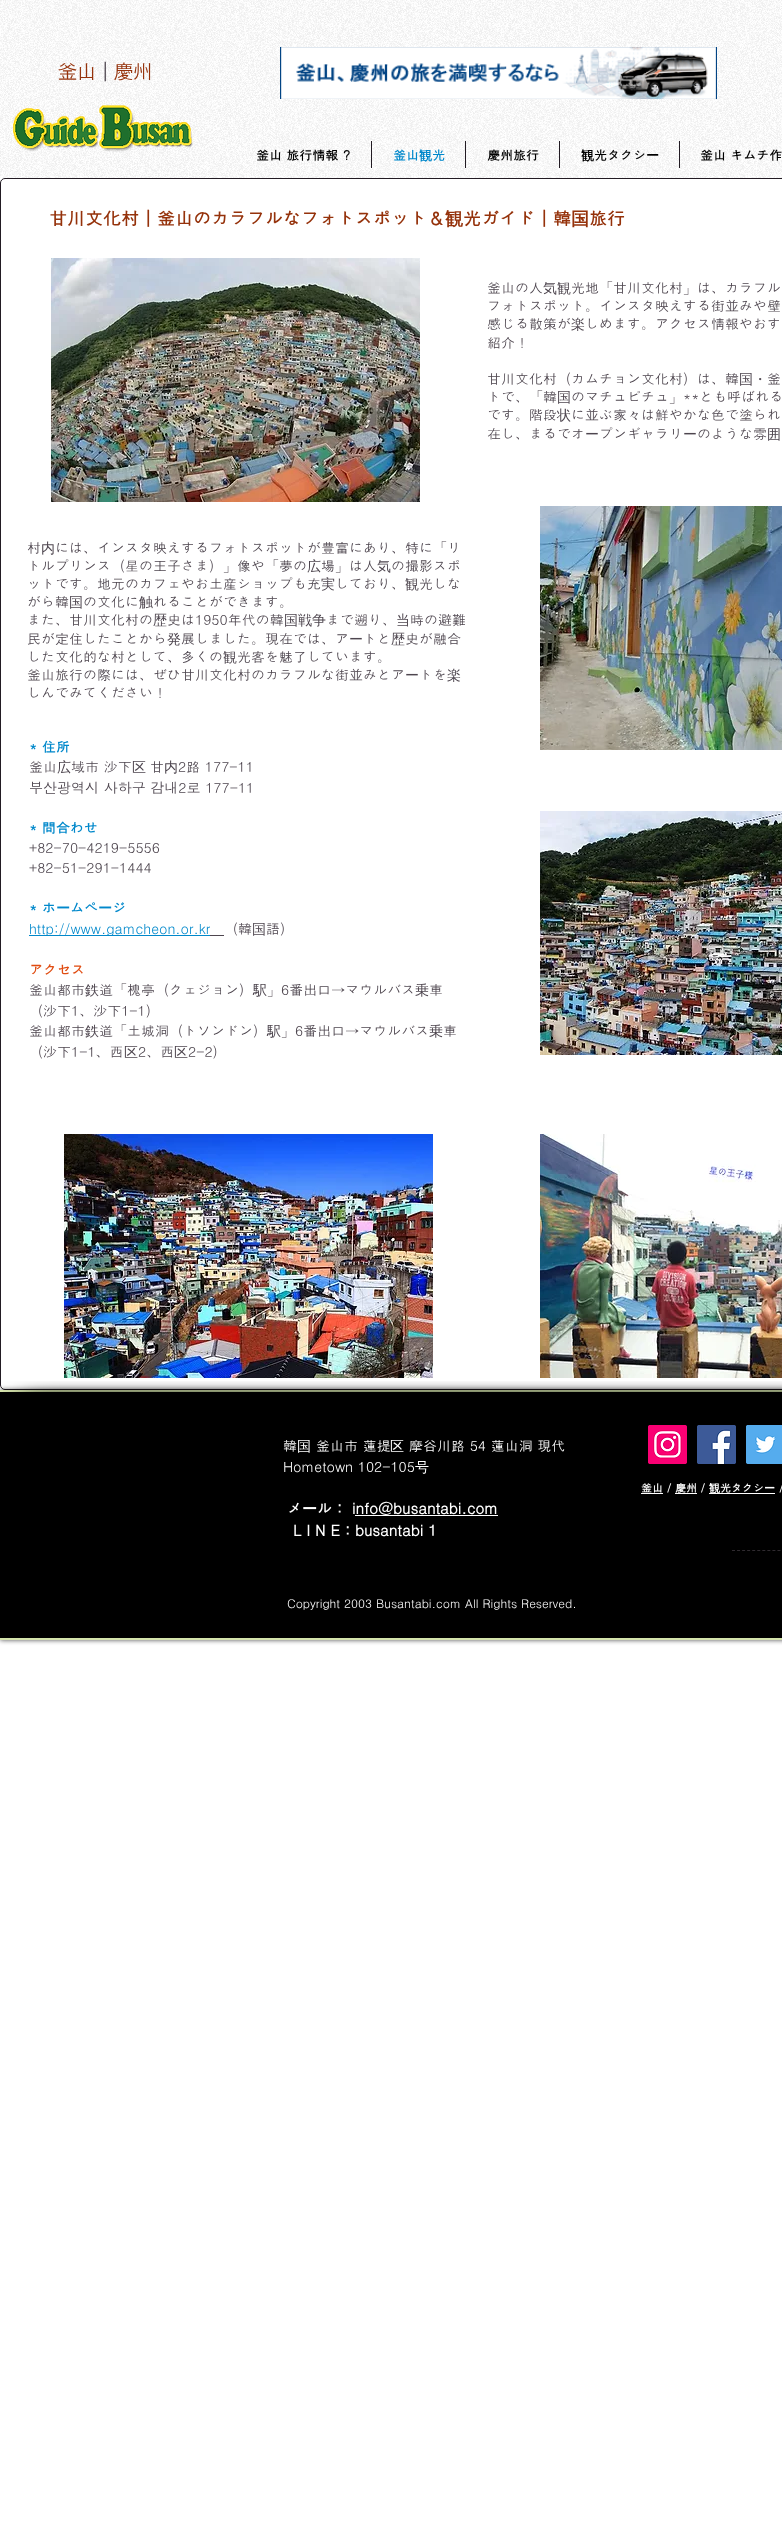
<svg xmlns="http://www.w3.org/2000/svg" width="782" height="2548">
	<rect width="100%" height="100%" fill="#FFFFFF" />
	<image x="0" y="0" width="782" height="178" href="assets/img1.png" />
	<text x="57" y="79" font-family="Dotum" font-size="21" letter-spacing="-2" fill="#95320B">釜山</text>
	<text x="100" y="79" font-family="Dotum" font-size="21" letter-spacing="-2" fill="#4E464F">|</text>
	<text x="113" y="79" font-family="Dotum" font-size="21" letter-spacing="-2" fill="#95320B">慶州</text>
	<image x="280" y="47" width="437" height="52" href="assets/img2.png" />
	<image x="13" y="105" width="180" height="47" href="assets/img3.png" />
	<text x="256" y="160" font-family="Dotum" font-size="13" font-weight="700" fill="#000000">釜山 旅行情報 ?</text>
	<rect x="371" y="141" width="1" height="27" fill="#221B23" />
	<text x="393" y="160" font-family="Dotum" font-size="13" font-weight="700" fill="#0088CB">釜山</text>
	<text x="419" y="160" font-family="WenQuanYi Zen Hei" font-size="13" font-weight="700" fill="#0088CB">観</text>
	<text x="432" y="160" font-family="Dotum" font-size="13" font-weight="700" fill="#0088CB">光</text>
	<rect x="465" y="141" width="1" height="27" fill="#221B23" />
	<text x="487" y="160" font-family="Dotum" font-size="13" font-weight="700" fill="#000000">慶州旅行</text>
	<rect x="559" y="141" width="1" height="27" fill="#221B23" />
	<text x="581" y="160" font-family="WenQuanYi Zen Hei" font-size="13" font-weight="700" fill="#000000">観</text>
	<text x="594" y="160" font-family="Dotum" font-size="13" font-weight="700" fill="#000000">光タクシ</text>
	<text x="646" y="160" font-family="WenQuanYi Zen Hei" font-size="13" font-weight="700" fill="#000000">ー</text>
	<rect x="679" y="141" width="1" height="27" fill="#221B23" />
	<text x="700" y="160" font-family="Dotum" font-size="13" font-weight="700" fill="#000000">釜山 キムチ作</text>
	<rect x="0.5" y="178.5" width="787" height="1211" rx="4.5" fill="none" stroke="#221B23" />
	<text x="49" y="225" font-family="Dotum" font-size="18" font-weight="700" fill="#95320B">甘川文化村｜釜山のカラフルなフォトスポット＆</text>
	<text x="445" y="225" font-family="WenQuanYi Zen Hei" font-size="18" font-weight="700" fill="#95320B">観</text>
	<text x="463" y="225" font-family="Dotum" font-size="18" font-weight="700" fill="#95320B">光ガイド｜韓</text>
	<text x="571" y="225" font-family="WenQuanYi Zen Hei" font-size="18" font-weight="700" fill="#95320B">国</text>
	<text x="589" y="225" font-family="Dotum" font-size="18" font-weight="700" fill="#95320B">旅行</text>
	<image x="51" y="258" width="369" height="244" href="assets/img4.png" />
	<text x="487" y="293" font-family="Dotum" font-size="14" fill="#4E464F">釜山の人</text>
	<text x="543" y="293" font-family="WenQuanYi Zen Hei" font-size="14" font-weight="500" fill="#4E464F">気観</text>
	<g font-family="Dotum" font-size="14" fill="#4E464F">
		<text x="571" y="293">光地「甘川文化村」は、カラフル</text>
		<text x="487" y="311">フォトスポット。インスタ映えする街並みや壁</text>
		<text x="487" y="329">感じる散策が</text>
	</g>
	<text x="571" y="329" font-family="WenQuanYi Zen Hei" font-size="14" font-weight="500" fill="#4E464F">楽</text>
	<g font-family="Dotum" font-size="14" fill="#4E464F">
		<text x="585" y="329">しめます。アクセス情報やおす</text>
		<text x="487" y="348">紹介！</text>
		<text x="487" y="384">甘川文化村（カムチョン文化村）は、韓</text>
	</g>
	<text x="739" y="384" font-family="WenQuanYi Zen Hei" font-size="14" font-weight="500" fill="#4E464F">国・</text>
	<g font-family="Dotum" font-size="14" fill="#4E464F">
		<text x="767" y="384">釜</text>
		<text x="487" y="402">トで、「韓</text>
	</g>
	<text x="557" y="402" font-family="WenQuanYi Zen Hei" font-size="14" font-weight="500" fill="#4E464F">国</text>
	<g font-family="Dotum" font-size="14" fill="#4E464F">
		<text x="571" y="402">のマチュピチュ」**とも呼ばれる</text>
		<text x="487" y="420">です。階段</text>
	</g>
	<text x="557" y="420" font-family="WenQuanYi Zen Hei" font-size="14" font-weight="500" fill="#4E464F">状</text>
	<text x="571" y="420" font-family="Dotum" font-size="14" fill="#4E464F">に並ぶ家</text>
	<text x="627" y="420" font-family="WenQuanYi Zen Hei" font-size="14" font-weight="500" fill="#4E464F">々</text>
	<g font-family="Dotum" font-size="14" fill="#4E464F">
		<text x="641" y="420">は鮮やかな色で塗られ</text>
		<text x="487" y="439">在し、まるでオ</text>
	</g>
	<text x="585" y="439" font-family="WenQuanYi Zen Hei" font-size="14" font-weight="500" fill="#4E464F">ー</text>
	<text x="599" y="439" font-family="Dotum" font-size="14" fill="#4E464F">プンギャラリ</text>
	<text x="683" y="439" font-family="WenQuanYi Zen Hei" font-size="14" font-weight="500" fill="#4E464F">ー</text>
	<text x="697" y="439" font-family="Dotum" font-size="14" fill="#4E464F">のような雰</text>
	<text x="767" y="439" font-family="WenQuanYi Zen Hei" font-size="14" font-weight="500" fill="#4E464F">囲</text>
	<text x="27" y="553" font-family="Dotum" font-size="14" fill="#4E464F">村</text>
	<text x="41" y="553" font-family="WenQuanYi Zen Hei" font-size="14" font-weight="500" fill="#4E464F">内</text>
	<g font-family="Dotum" font-size="14" fill="#4E464F">
		<text x="55" y="553">には、インスタ映えするフォトスポットが豊富にあり、特に「リ</text>
		<text x="27" y="571">トルプリンス（星の王子さま）」像や「夢の</text>
	</g>
	<text x="307" y="571" font-family="WenQuanYi Zen Hei" font-size="14" font-weight="500" fill="#4E464F">広</text>
	<text x="321" y="571" font-family="Dotum" font-size="14" fill="#4E464F">場」は人</text>
	<text x="377" y="571" font-family="WenQuanYi Zen Hei" font-size="14" font-weight="500" fill="#4E464F">気</text>
	<g font-family="Dotum" font-size="14" fill="#4E464F">
		<text x="391" y="571">の撮影スポ</text>
		<text x="27" y="589">ットです。地元のカフェやお土産ショップも充</text>
	</g>
	<text x="321" y="589" font-family="WenQuanYi Zen Hei" font-size="14" font-weight="500" fill="#4E464F">実</text>
	<text x="335" y="589" font-family="Dotum" font-size="14" fill="#4E464F">しており、</text>
	<text x="405" y="589" font-family="WenQuanYi Zen Hei" font-size="14" font-weight="500" fill="#4E464F">観</text>
	<g font-family="Dotum" font-size="14" fill="#4E464F">
		<text x="419" y="589">光しな</text>
		<text x="27" y="607">がら韓</text>
	</g>
	<text x="69" y="607" font-family="WenQuanYi Zen Hei" font-size="14" font-weight="500" fill="#4E464F">国</text>
	<text x="83" y="607" font-family="Dotum" font-size="14" fill="#4E464F">の文化に</text>
	<text x="139" y="607" font-family="WenQuanYi Zen Hei" font-size="14" font-weight="500" fill="#4E464F">触</text>
	<g font-family="Dotum" font-size="14" fill="#4E464F">
		<text x="153" y="607">れることができます。</text>
		<text x="27" y="625">また、甘川文化村の</text>
	</g>
	<text x="153" y="625" font-family="WenQuanYi Zen Hei" font-size="14" font-weight="500" fill="#4E464F">歴</text>
	<text x="167" y="625" font-family="Dotum" font-size="14" fill="#4E464F">史は1950年代の韓</text>
	<text x="284" y="625" font-family="WenQuanYi Zen Hei" font-size="14" font-weight="500" fill="#4E464F">国戦争</text>
	<text x="326" y="625" font-family="Dotum" font-size="14" fill="#4E464F">まで遡り、</text>
	<text x="396" y="625" font-family="WenQuanYi Zen Hei" font-size="14" font-weight="500" fill="#4E464F">当</text>
	<g font-family="Dotum" font-size="14" fill="#4E464F">
		<text x="410" y="625">時の避難</text>
		<text x="27" y="644">民が定住したことから</text>
	</g>
	<text x="167" y="644" font-family="WenQuanYi Zen Hei" font-size="14" font-weight="500" fill="#4E464F">発</text>
	<text x="181" y="644" font-family="Dotum" font-size="14" fill="#4E464F">展しました。現在では、ア</text>
	<text x="349" y="644" font-family="WenQuanYi Zen Hei" font-size="14" font-weight="500" fill="#4E464F">ー</text>
	<text x="363" y="644" font-family="Dotum" font-size="14" fill="#4E464F">トと</text>
	<text x="391" y="644" font-family="WenQuanYi Zen Hei" font-size="14" font-weight="500" fill="#4E464F">歴</text>
	<g font-family="Dotum" font-size="14" fill="#4E464F">
		<text x="405" y="644">史が融合</text>
		<text x="27" y="662">した文化的な村として、多くの</text>
	</g>
	<text x="223" y="662" font-family="WenQuanYi Zen Hei" font-size="14" font-weight="500" fill="#4E464F">観</text>
	<g font-family="Dotum" font-size="14" fill="#4E464F">
		<text x="237" y="662">光客を魅了しています。</text>
		<text x="27" y="680">釜山旅行の際には、ぜひ甘川文化村のカラフルな街並みとア</text>
	</g>
	<text x="405" y="680" font-family="WenQuanYi Zen Hei" font-size="14" font-weight="500" fill="#4E464F">ー</text>
	<text x="419" y="680" font-family="Dotum" font-size="14" fill="#4E464F">トを</text>
	<text x="447" y="680" font-family="WenQuanYi Zen Hei" font-size="14" font-weight="500" fill="#4E464F">楽</text>
	<text x="27" y="698" font-family="Dotum" font-size="14" fill="#4E464F">しんでみてください！</text>
	<image x="540" y="506" width="242" height="244" href="assets/img5.png" />
	<text x="29" y="752" font-family="Dotum" font-size="14" font-weight="700" fill="#0088CB">* 住所</text>
	<text x="29" y="772" font-family="Dotum" font-size="14" fill="#4E464F">釜山</text>
	<text x="57" y="772" font-family="WenQuanYi Zen Hei" font-size="14" font-weight="500" fill="#4E464F">広</text>
	<text x="71" y="772" font-family="Dotum" font-size="14" fill="#4E464F">域市 沙下</text>
	<text x="132" y="772" font-family="WenQuanYi Zen Hei" font-size="14" font-weight="500" fill="#4E464F">区</text>
	<text x="150" y="772" font-family="Dotum" font-size="14" fill="#4E464F">甘</text>
	<text x="164" y="772" font-family="WenQuanYi Zen Hei" font-size="14" font-weight="500" fill="#4E464F">内</text>
	<g font-family="Dotum" font-size="14" fill="#4E464F">
		<text x="178" y="772">2路 177-11</text>
		<text x="29" y="793">부산광역시 사하구 감내2로 177-11</text>
	</g>
	<text x="29" y="833" font-family="Dotum" font-size="14" font-weight="700" fill="#0088CB">* 問合わせ</text>
	<g font-family="Dotum" font-size="14" fill="#4E464F">
		<text x="29" y="853">+82-70-4219-5556</text>
		<text x="29" y="873">+82-51-291-1444</text>
	</g>
	<text x="29" y="913" font-family="Dotum" font-size="14" font-weight="700" fill="#0088CB">* ホ</text>
	<text x="56" y="913" font-family="WenQuanYi Zen Hei" font-size="14" font-weight="700" fill="#0088CB">ー</text>
	<text x="70" y="913" font-family="Dotum" font-size="14" font-weight="700" fill="#0088CB">ムペ</text>
	<text x="98" y="913" font-family="WenQuanYi Zen Hei" font-size="14" font-weight="700" fill="#0088CB">ー</text>
	<text x="112" y="913" font-family="Dotum" font-size="14" font-weight="700" fill="#0088CB">ジ</text>
	<rect x="29" y="935" width="181" height="1" fill="#0088CB" />
	<text x="29" y="934" font-family="Dotum" font-size="14" fill="#0088CB">http://www.gamcheon.or.kr</text>
	<rect x="210" y="935" width="14" height="1" fill="#4E464F" />
	<text x="224" y="934" font-family="Dotum" font-size="14" fill="#4E464F">（韓</text>
	<text x="252" y="934" font-family="WenQuanYi Zen Hei" font-size="14" font-weight="500" fill="#4E464F">国</text>
	<text x="266" y="934" font-family="Dotum" font-size="14" fill="#4E464F">語）</text>
	<text x="29" y="975" font-family="Dotum" font-size="14" font-weight="700" fill="#E04C11">アクセス</text>
	<text x="29" y="995" font-family="Dotum" font-size="14" fill="#4E464F">釜山都市</text>
	<text x="85" y="995" font-family="WenQuanYi Zen Hei" font-size="14" font-weight="500" fill="#4E464F">鉄</text>
	<text x="99" y="995" font-family="Dotum" font-size="14" fill="#4E464F">道「槐亭（クェジョン）</text>
	<text x="253" y="995" font-family="WenQuanYi Zen Hei" font-size="14" font-weight="500" fill="#4E464F">駅</text>
	<text x="267" y="995" font-family="Dotum" font-size="14" fill="#4E464F">」6番出口→マウルバス</text>
	<text x="415" y="995" font-family="WenQuanYi Zen Hei" font-size="14" font-weight="500" fill="#4E464F">乗</text>
	<g font-family="Dotum" font-size="14" fill="#4E464F">
		<text x="429" y="995">車</text>
		<text x="29" y="1016">（沙下1、沙下1-1）</text>
		<text x="29" y="1036">釜山都市</text>
	</g>
	<text x="85" y="1036" font-family="WenQuanYi Zen Hei" font-size="14" font-weight="500" fill="#4E464F">鉄</text>
	<text x="99" y="1036" font-family="Dotum" font-size="14" fill="#4E464F">道「土城洞（トソンドン）</text>
	<text x="267" y="1036" font-family="WenQuanYi Zen Hei" font-size="14" font-weight="500" fill="#4E464F">駅</text>
	<text x="281" y="1036" font-family="Dotum" font-size="14" fill="#4E464F">」6番出口→マウルバス</text>
	<text x="429" y="1036" font-family="WenQuanYi Zen Hei" font-size="14" font-weight="500" fill="#4E464F">乗</text>
	<g font-family="Dotum" font-size="14" fill="#4E464F">
		<text x="443" y="1036">車</text>
		<text x="29" y="1057">（沙下1-1、西</text>
	</g>
	<text x="124" y="1057" font-family="WenQuanYi Zen Hei" font-size="14" font-weight="500" fill="#4E464F">区</text>
	<text x="138" y="1057" font-family="Dotum" font-size="14" fill="#4E464F">2、西</text>
	<text x="174" y="1057" font-family="WenQuanYi Zen Hei" font-size="14" font-weight="500" fill="#4E464F">区</text>
	<text x="188" y="1057" font-family="Dotum" font-size="14" fill="#4E464F">2-2）</text>
	<image x="540" y="811" width="242" height="244" href="assets/img6.png" />
	<image x="64" y="1134" width="369" height="244" href="assets/img7.png" />
	<image x="540" y="1134" width="242" height="244" href="assets/img8.png" />
	<rect x="0" y="1390" width="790" height="250" fill="#000000" fill-opacity="0.7" filter="blur(2.5px)" />
	<rect x="0" y="1390" width="782" height="2" fill="#D5E4AC" />
	<rect x="0" y="1638" width="782" height="2" fill="#D5E4AC" />
	<rect x="0" y="1392" width="782" height="246" fill="#000000" />
	<image x="3" y="1381" width="97" height="11" href="assets/img9.png" />
	<image x="100" y="1381" width="682" height="11" href="assets/img10.png" />
	<text x="283" y="1451" font-family="Dotum" font-size="14" fill="#FFFFFF">韓</text>
	<text x="297" y="1451" font-family="WenQuanYi Zen Hei" font-size="14" font-weight="500" fill="#FFFFFF">国</text>
	<text x="316" y="1451" font-family="Dotum" font-size="14" fill="#FFFFFF">釜山市 蓮提</text>
	<text x="390" y="1451" font-family="WenQuanYi Zen Hei" font-size="14" font-weight="500" fill="#FFFFFF">区</text>
	<g font-family="Dotum" font-size="14" fill="#FFFFFF">
		<text x="409" y="1451">摩谷川路 54 蓮山洞 現代</text>
		<text x="283" y="1472">Hometown 102-105</text>
	</g>
	<text x="415" y="1472" font-family="WenQuanYi Zen Hei" font-size="14" font-weight="500" fill="#FFFFFF">号</text>
	<text x="287" y="1514" font-family="Dotum" font-size="15" font-weight="700" fill="#FFFFFF">メ</text>
	<text x="302" y="1514" font-family="WenQuanYi Zen Hei" font-size="15" font-weight="700" fill="#FFFFFF">ー</text>
	<text x="317" y="1514" font-family="Dotum" font-size="15" font-weight="700" fill="#FFFFFF">ル： info@busantabi.com</text>
	<rect x="355" y="1515" width="143" height="1" fill="#FFFFFF" />
	<text x="293" y="1536" font-family="Dotum" font-size="15" font-weight="700" fill="#FFFFFF">L I N E : busantabi 1</text>
	<image x="648" y="1425" width="39" height="39" href="assets/img11.png" />
	<image x="697" y="1425" width="39" height="39" href="assets/img12.png" />
	<image x="746" y="1425" width="36" height="39" href="assets/img13.png" />
	<text x="641" y="1492" font-family="Dotum" font-size="11" font-weight="700" fill="#FFFFFF">釜山 / 慶州 /</text>
	<rect x="641" y="1493" width="22" height="1" fill="#FFFFFF" />
	<rect x="675" y="1493" width="22" height="1" fill="#FFFFFF" />
	<rect x="709" y="1493" width="66" height="1" fill="#FFFFFF" />
	<text x="709" y="1492" font-family="WenQuanYi Zen Hei" font-size="11" font-weight="700" fill="#FFFFFF">観</text>
	<text x="720" y="1492" font-family="Dotum" font-size="11" font-weight="700" fill="#FFFFFF">光タクシ</text>
	<text x="764" y="1492" font-family="WenQuanYi Zen Hei" font-size="11" font-weight="700" fill="#FFFFFF">ー</text>
	<text x="779" y="1492" font-family="Dotum" font-size="11" font-weight="700" fill="#FFFFFF">/</text>
	<path d="M732 1550.5H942" fill="none" stroke="#2F2A2F" stroke-dasharray="3 2.05" />
	<text x="287" y="1608" font-family="Dotum" font-size="12" fill="#FFFFFF">Copyright 2003 Busantabi.com All Rights Reserved.</text>
</svg>
